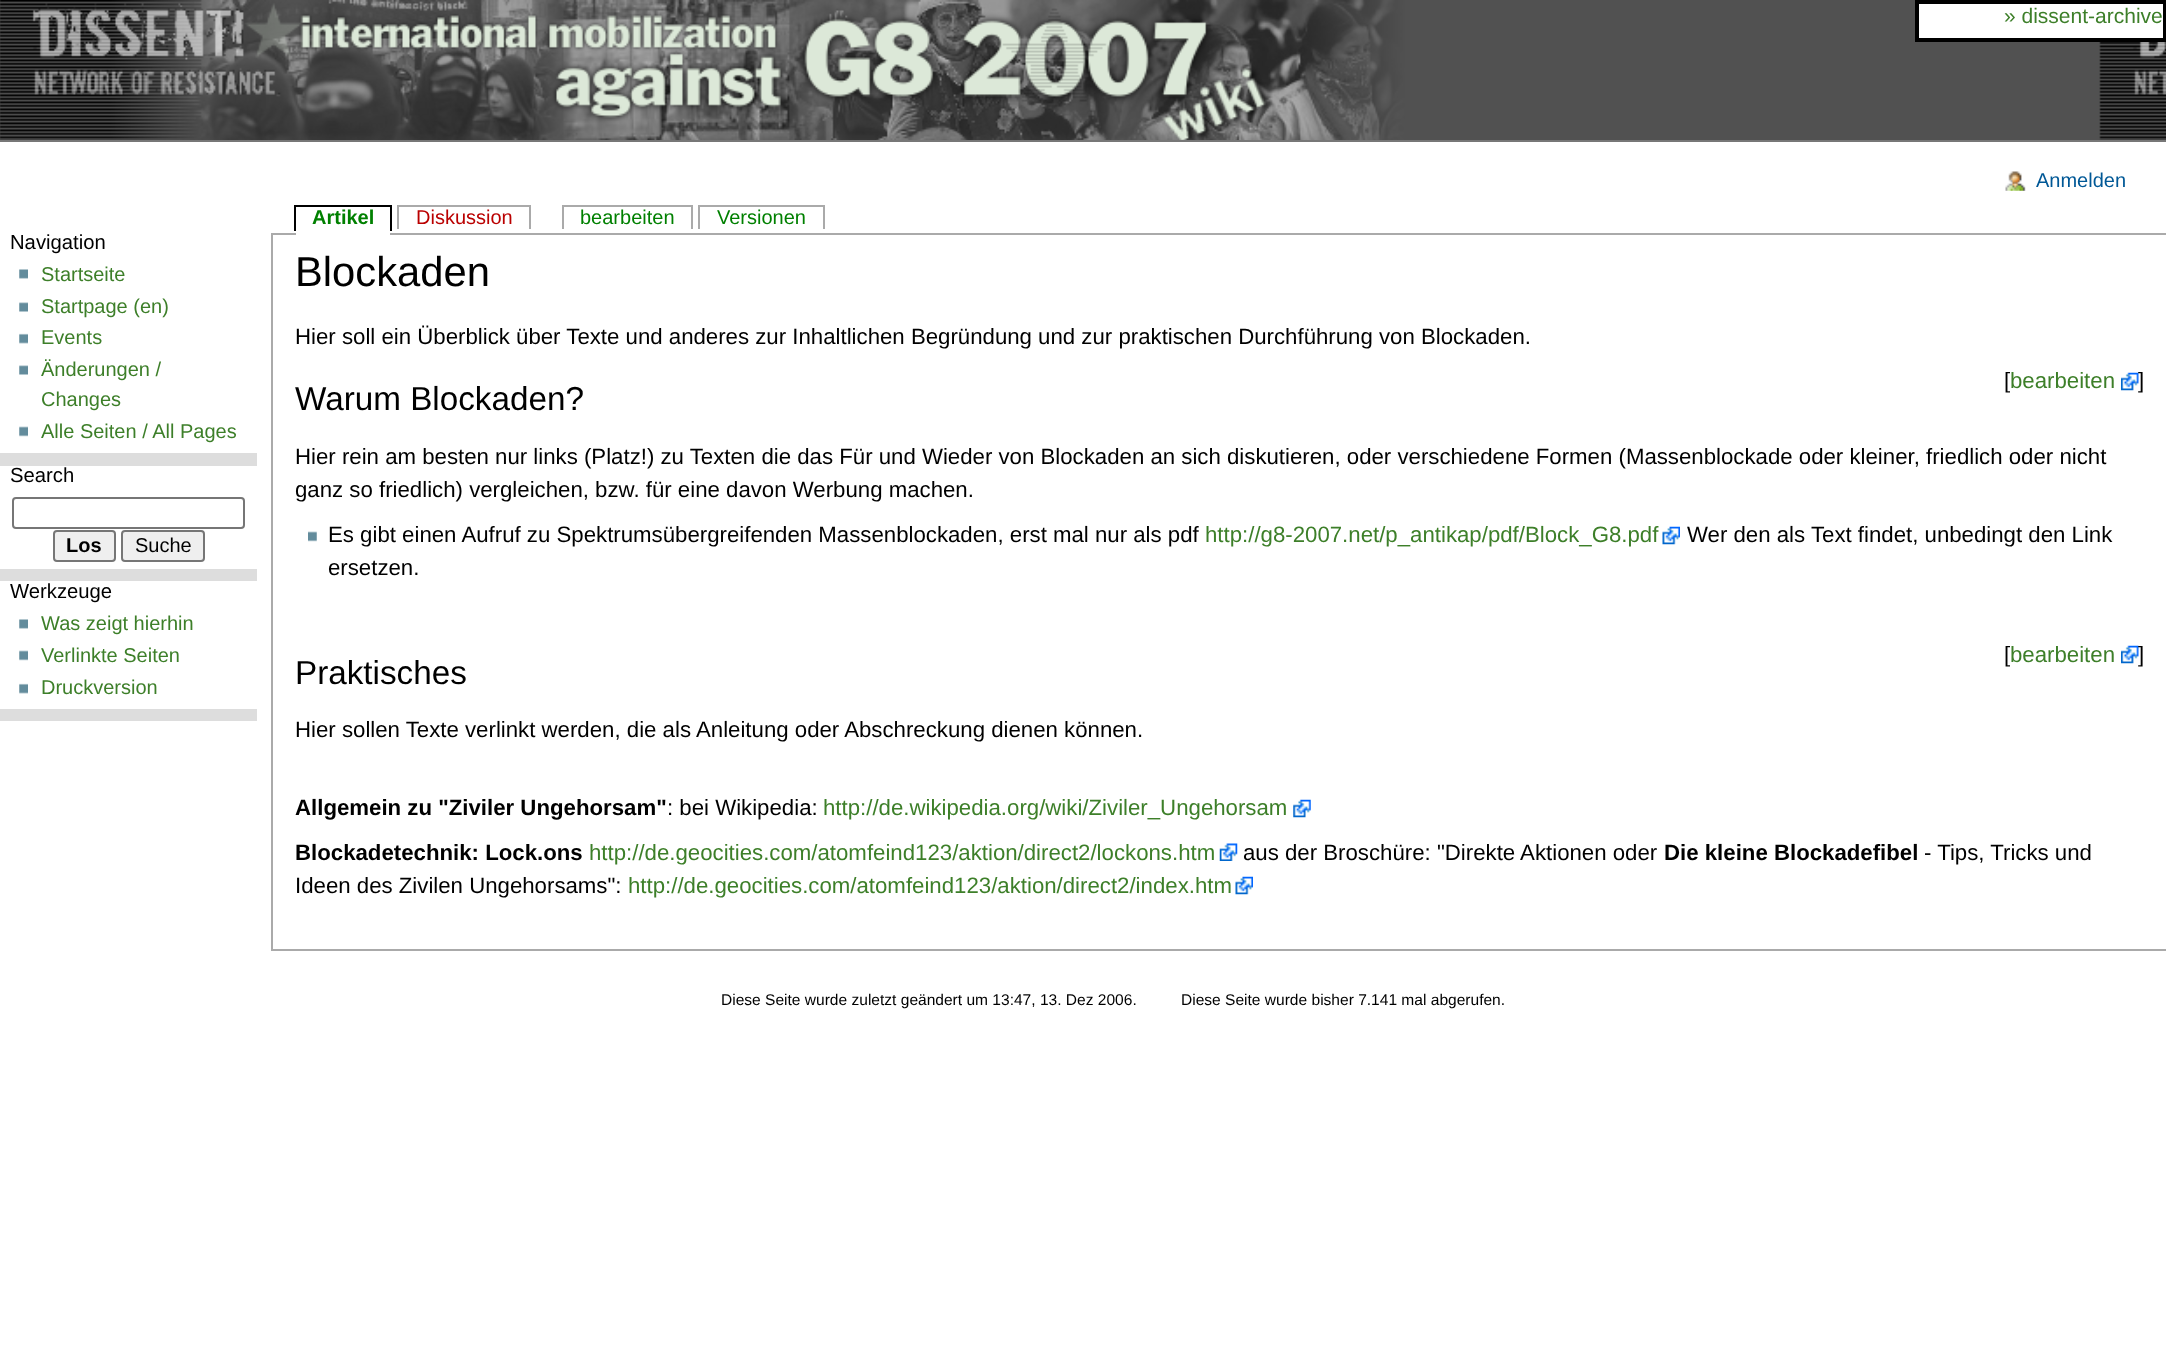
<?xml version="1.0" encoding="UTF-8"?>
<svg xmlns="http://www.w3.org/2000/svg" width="2166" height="1345">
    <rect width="100%" height="100%" fill="#FFFFFF"/>
    <image x="0" y="0" width="2166" height="140" href="img_01.png"/>
    <rect x="0" y="140" width="2166" height="2" fill="#777777"/>
    <rect x="1917" y="2" width="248" height="38" fill="#FFFFFF" stroke="#000000" stroke-width="4"/>
    <text x="2004" y="23" font-family="Liberation Sans" font-size="21" fill="#3D7F29">» dissent-archive</text>
    <image x="2005" y="171" width="21" height="20" href="img_02.png"/>
    <text x="2036" y="187" font-family="Liberation Sans" font-size="20" fill="#005896">Anmelden</text>
    <text x="312" y="224" font-family="Liberation Sans" font-size="20" font-weight="700" fill="#008000">Artikel</text>
    <rect x="294" y="205" width="98" height="2" fill="#000000"/>
    <rect x="390" y="205" width="2" height="26" fill="#000000"/>
    <rect x="294" y="205" width="2" height="26" fill="#000000"/>
    <rect x="271" y="233" width="1895" height="2" fill="#AAAAAA"/>
    <rect x="296" y="233" width="94" height="2" fill="#FFFFFF"/>
    <text x="416" y="224" font-family="Liberation Sans" font-size="20" fill="#BA0000">Diskussion</text>
    <rect x="397" y="205" width="133" height="2" fill="#AAAAAA"/>
    <rect x="529" y="205" width="2" height="24" fill="#AAAAAA"/>
    <rect x="397" y="205" width="2" height="24" fill="#AAAAAA"/>
    <text x="580" y="224" font-family="Liberation Sans" font-size="20" fill="#008000">bearbeiten</text>
    <rect x="562" y="205" width="131" height="2" fill="#AAAAAA"/>
    <rect x="691" y="205" width="2" height="24" fill="#AAAAAA"/>
    <rect x="562" y="205" width="2" height="24" fill="#AAAAAA"/>
    <text x="717" y="224" font-family="Liberation Sans" font-size="20" fill="#008000">Versionen</text>
    <rect x="698" y="205" width="126" height="2" fill="#AAAAAA"/>
    <rect x="823" y="205" width="2" height="24" fill="#AAAAAA"/>
    <rect x="698" y="205" width="2" height="24" fill="#AAAAAA"/>
    <rect x="0" y="453" width="257" height="268" fill="#DDDDDD"/>
    <text x="10" y="249" font-family="Liberation Sans" font-size="20.25" fill="#000000">Navigation</text>
    <image x="19" y="269" width="9" height="10" href="img_03.png"/>
    <text x="41" y="281" font-family="Liberation Sans" font-size="20" fill="#3D7F29">Startseite</text>
    <image x="19" y="302" width="9" height="10" href="img_04.png"/>
    <text x="41" y="313" font-family="Liberation Sans" font-size="20" fill="#3D7F29">Startpage (en)</text>
    <image x="19" y="333" width="9" height="11" href="img_05.png"/>
    <text x="41" y="344" font-family="Liberation Sans" font-size="20" fill="#3D7F29">Events</text>
    <image x="19" y="365" width="9" height="10" href="img_04.png"/>
    <text font-family="Liberation Sans" font-size="20" fill="#3D7F29">
        <tspan x="41" y="376">Änderungen /</tspan>
        <tspan x="41" y="406">Changes</tspan>
    </text>
    <image x="19" y="426" width="9" height="11" href="img_06.png"/>
    <text x="41" y="438" font-family="Liberation Sans" font-size="20" fill="#3D7F29">Alle Seiten / All Pages</text>
    <rect x="0" y="466" width="257" height="103" fill="#FFFFFF"/>
    <text x="10" y="482" font-family="Liberation Sans" font-size="20.25" fill="#000000">Search</text>
    <rect x="13" y="498" width="231" height="30" rx="3" fill="none" stroke="#767676" stroke-width="2"/>
    <rect x="54" y="531" width="61" height="30" rx="3" fill="#EFEFEF" stroke="#767676" stroke-width="2"/>
    <text x="66" y="552" font-family="Liberation Sans" font-size="20" font-weight="700" fill="#000000">Los</text>
    <rect x="122" y="531" width="82" height="30" rx="3" fill="#EFEFEF" stroke="#767676" stroke-width="2"/>
    <text x="135" y="552" font-family="Liberation Sans" font-size="20" fill="#000000">Suche</text>
    <rect x="0" y="581" width="257" height="128" fill="#FFFFFF"/>
    <text x="10" y="598" font-family="Liberation Sans" font-size="20.25" fill="#000000">Werkzeuge</text>
    <image x="19" y="619" width="9" height="10" href="img_03.png"/>
    <text x="41" y="630" font-family="Liberation Sans" font-size="20" fill="#3D7F29">Was zeigt hierhin</text>
    <image x="19" y="650" width="9" height="11" href="img_06.png"/>
    <text x="41" y="662" font-family="Liberation Sans" font-size="20" fill="#3D7F29">Verlinkte Seiten</text>
    <image x="19" y="683" width="9" height="11" href="img_05.png"/>
    <text x="41" y="694" font-family="Liberation Sans" font-size="20" fill="#3D7F29">Druckversion</text>
    <rect x="271" y="949" width="1895" height="2" fill="#AAAAAA"/>
    <rect x="271" y="233" width="2" height="717" fill="#AAAAAA"/>
    <text x="295" y="286" font-family="Liberation Sans" font-size="41.75" fill="#000000">Blockaden</text>
    <text x="295" y="344" font-family="Liberation Sans" font-size="22.22" fill="#000000">Hier soll ein Überblick über Texte und anderes zur Inhaltlichen Begründung und zur praktischen Durchführung von Blockaden.</text>
    <text x="2004" y="388" font-family="Liberation Sans" font-size="22.22" fill="#000000">[</text>
    <text x="2010" y="388" font-family="Liberation Sans" font-size="22.22" fill="#3D7F29">bearbeiten</text>
    <image x="2121" y="372" width="18" height="19" href="img_07.png"/>
    <text x="2138" y="388" font-family="Liberation Sans" font-size="22.22" fill="#000000">]</text>
    <text x="295" y="410" font-family="Liberation Sans" font-size="33.25" fill="#000000">Warum Blockaden?</text>
    <text font-family="Liberation Sans" font-size="22.22" fill="#000000">
        <tspan x="295" y="464">Hier rein am besten nur links (Platz!) zu Texten die das Für und Wieder von Blockaden an sich diskutieren, oder verschiedene Formen (Massenblockade oder kleiner, friedlich oder nicht</tspan>
        <tspan x="295" y="497">ganz so friedlich) vergleichen, bzw. für eine davon Werbung machen.</tspan>
    </text>
    <image x="308" y="531" width="9" height="11" href="img_08.png"/>
    <text x="328" y="542" font-family="Liberation Sans" font-size="22.22" fill="#000000">Es gibt einen Aufruf zu Spektrumsübergreifenden Massenblockaden, erst mal nur als pdf</text>
    <text x="1205" y="542" font-family="Liberation Sans" font-size="22.22" fill="#3D7F29">http://g8-2007.net/p_antikap/pdf/Block_G8.pdf</text>
    <image x="1662" y="526" width="18" height="19" href="img_09.png"/>
    <text x="1687" y="542" font-family="Liberation Sans" font-size="22.22" fill="#000000">Wer den als Text findet, unbedingt den Link</text>
    <text x="328" y="575" font-family="Liberation Sans" font-size="22.22" fill="#000000">ersetzen.</text>
    <text x="2004" y="662" font-family="Liberation Sans" font-size="22.22" fill="#000000">[</text>
    <text x="2010" y="662" font-family="Liberation Sans" font-size="22.22" fill="#3D7F29">bearbeiten</text>
    <image x="2121" y="645" width="18" height="19" href="img_07.png"/>
    <text x="2138" y="662" font-family="Liberation Sans" font-size="22.22" fill="#000000">]</text>
    <text x="295" y="684" font-family="Liberation Sans" font-size="33.25" fill="#000000">Praktisches</text>
    <text x="295" y="737" font-family="Liberation Sans" font-size="22.22" fill="#000000">Hier sollen Texte verlinkt werden, die als Anleitung oder Abschreckung dienen können.</text>
    <text x="295" y="815" font-family="Liberation Sans" font-size="22.22" font-weight="700" fill="#000000">Allgemein zu "Ziviler Ungehorsam"</text>
    <text x="667" y="815" font-family="Liberation Sans" font-size="22.22" fill="#000000">: bei Wikipedia:</text>
    <text x="823" y="815" font-family="Liberation Sans" font-size="22.22" fill="#3D7F29">http://de.wikipedia.org/wiki/Ziviler_Ungehorsam</text>
    <image x="1293" y="799" width="18" height="19" href="img_10.png"/>
    <text x="295" y="860" font-family="Liberation Sans" font-size="22.22" font-weight="700" fill="#000000">Blockadetechnik: Lock.ons</text>
    <text x="589" y="860" font-family="Liberation Sans" font-size="22.22" fill="#3D7F29">http://de.geocities.com/atomfeind123/aktion/direct2/lockons.htm</text>
    <image x="1219" y="843" width="19" height="18" href="img_11.png"/>
    <text x="1243" y="860" font-family="Liberation Sans" font-size="22.22" fill="#000000">aus der Broschüre: "Direkte Aktionen oder</text>
    <text x="1664" y="860" font-family="Liberation Sans" font-size="22.22" font-weight="700" fill="#000000">Die kleine Blockadefibel</text>
    <text x="1924" y="860" font-family="Liberation Sans" font-size="22.22" fill="#000000">- Tips, Tricks und</text>
    <text x="295" y="893" font-family="Liberation Sans" font-size="22.22" fill="#000000">Ideen des Zivilen Ungehorsams":</text>
    <text x="628" y="893" font-family="Liberation Sans" font-size="22.22" fill="#3D7F29">http://de.geocities.com/atomfeind123/aktion/direct2/index.htm</text>
    <image x="1235" y="876" width="18" height="19" href="img_12.png"/>
    <text x="721" y="1005" font-family="Liberation Sans" font-size="15.55" fill="#000000">Diese Seite wurde zuletzt geändert um 13:47, 13. Dez 2006.</text>
    <text x="1181" y="1005" font-family="Liberation Sans" font-size="15.55" fill="#000000">Diese Seite wurde bisher 7.141 mal abgerufen.</text>
</svg>
